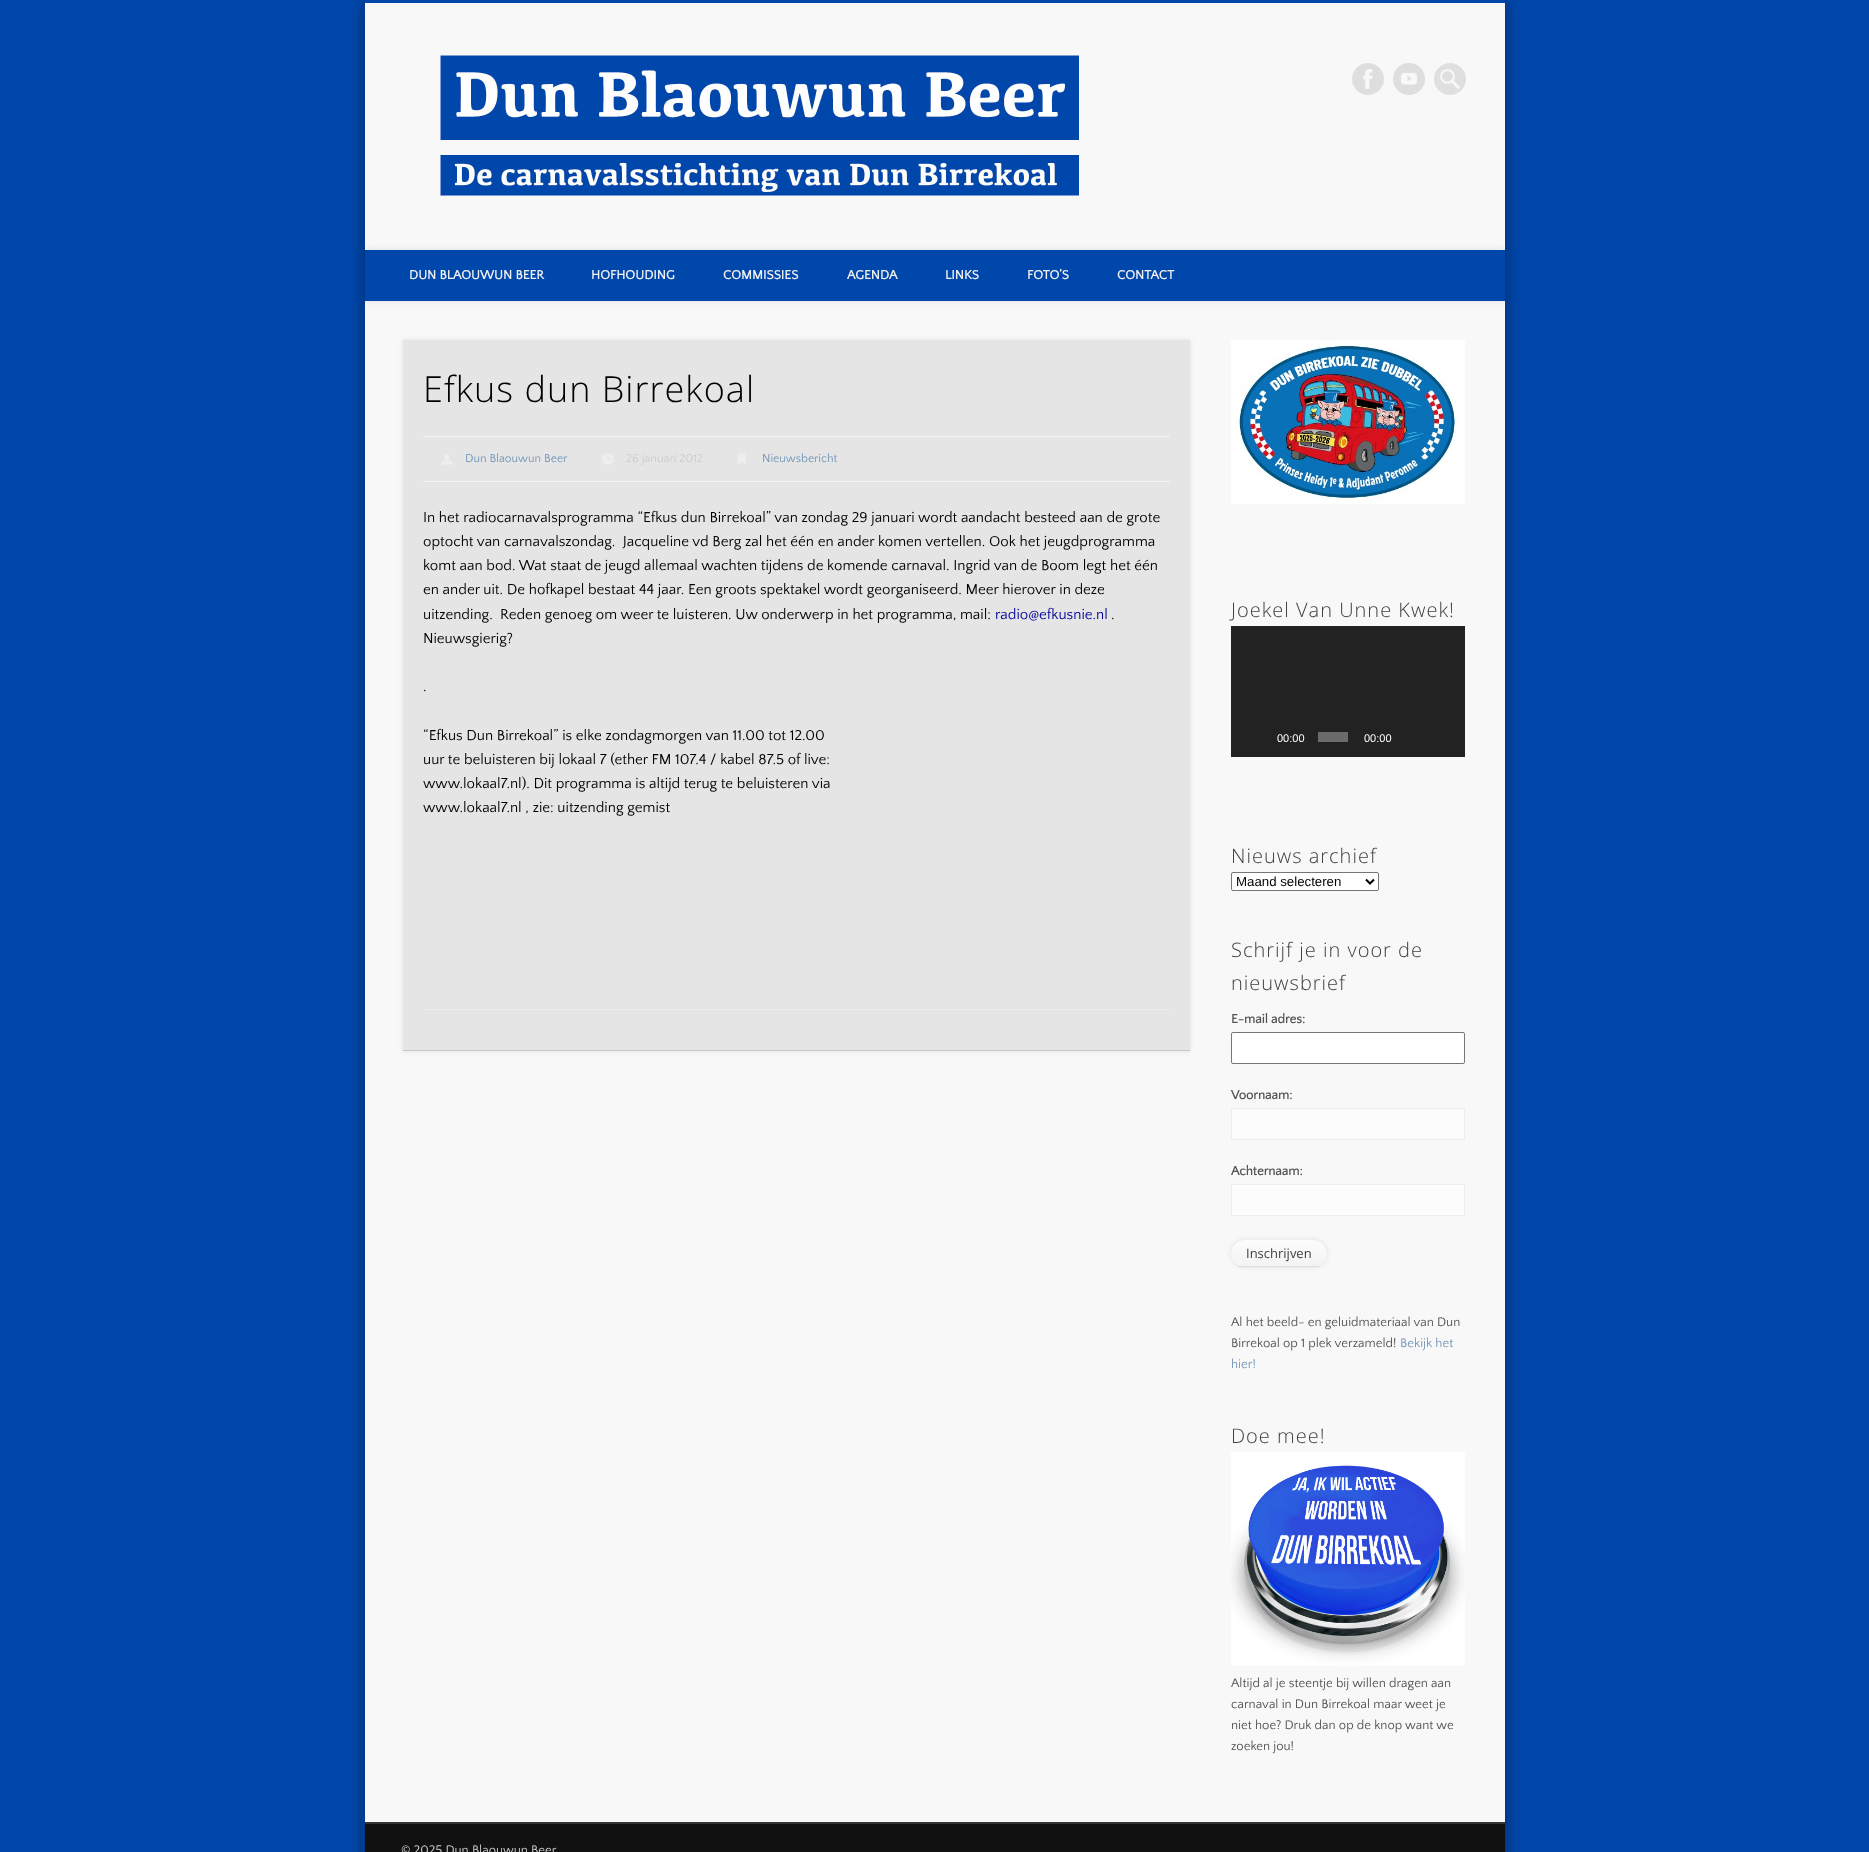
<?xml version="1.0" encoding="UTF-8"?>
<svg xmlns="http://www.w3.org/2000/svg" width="1869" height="1852">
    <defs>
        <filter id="blur1" x="-50%" y="-200%" width="200%" height="500%"><feGaussianBlur stdDeviation="9"/></filter>
        <clipPath id="clip1"><rect x="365" y="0" width="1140" height="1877"/></clipPath>
        <filter id="blur2" x="-50%" y="-200%" width="200%" height="500%"><feGaussianBlur stdDeviation="3.5"/></filter>
        <filter id="blur3" x="-50%" y="-200%" width="200%" height="500%"><feGaussianBlur stdDeviation="2.5"/></filter>
        <clipPath id="clip2"><rect x="1231" y="1240" width="96" height="27" rx="13.5"/></clipPath>
        <linearGradient id="g1" gradientUnits="userSpaceOnUse" x1="1279" y1="1240" x2="1279" y2="1266"><stop offset="0" stop-color="#FCFCFC"/><stop offset="1" stop-color="#F3F3F3"/></linearGradient>
    </defs>
    <rect width="100%" height="100%" fill="#0047AB"/>
    <rect x="365" y="0" width="1140" height="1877" fill="#000000" fill-opacity="0.4" filter="url(#blur1)"/>
    <rect x="365" y="3" width="1140" height="1819" fill="#F8F8F8"/>
    <rect x="365" y="0" width="1140" height="3" fill="#0047AB"/>
    <image x="439" y="53" width="640" height="144" href="img_01.png"/>
    <image x="1352" y="63" width="32" height="32" href="img_02.png"/>
    <image x="1393" y="63" width="32" height="32" href="img_03.png"/>
    <circle cx="1450" cy="79" r="16" fill="#DFDFDF"/>
    <image x="1440" y="69" width="20" height="20" href="img_04.png"/>
    <g clip-path="url(#clip1)">
        <rect x="365" y="250" width="1140" height="51" fill="#000000" fill-opacity="0.1" filter="url(#blur2)"/>
    </g>
    <rect x="365" y="250" width="1140" height="51" fill="#0047AB"/>
    <text x="409" y="279" font-family="Quattrocento Sans" font-size="13" font-weight="700" fill="#F0F0F0">DUN BLAOUWUN BEER</text>
    <text x="591" y="279" font-family="Quattrocento Sans" font-size="13" font-weight="700" fill="#F0F0F0">HOFHOUDING</text>
    <text x="723" y="279" font-family="Quattrocento Sans" font-size="13" font-weight="700" fill="#F0F0F0">COMMISSIES</text>
    <text x="847" y="279" font-family="Quattrocento Sans" font-size="13" font-weight="700" fill="#F0F0F0">AGENDA</text>
    <text x="945" y="279" font-family="Quattrocento Sans" font-size="13" font-weight="700" fill="#F0F0F0">LINKS</text>
    <text x="1027" y="279" font-family="Quattrocento Sans" font-size="13" font-weight="700" fill="#F0F0F0">FOTO’S</text>
    <text x="1117" y="279" font-family="Quattrocento Sans" font-size="13" font-weight="700" fill="#F0F0F0">CONTACT</text>
    <rect x="403" y="340" width="787" height="711" fill="#000000" fill-opacity="0.1" filter="url(#blur3)"/>
    <rect x="403" y="340" width="787" height="710" fill="#E5E5E5"/>
    <rect x="403" y="1050" width="787" height="1" fill="#C7C7C7"/>
    <text x="423" y="402" font-family="Open Sans" font-size="36" font-weight="300" letter-spacing="1" fill="#000000">Efkus dun Birrekoal</text>
    <rect x="423" y="436" width="747" height="1" fill="#F4F4F4"/>
    <rect x="423" y="481" width="747" height="1" fill="#F4F4F4"/>
    <image x="441" y="453" width="12" height="12" href="img_05.png"/>
    <text x="465" y="462" font-family="Quattrocento Sans" font-size="12" fill="#7597B9">Dun Blaouwun Beer</text>
    <image x="602" y="453" width="12" height="12" href="img_06.png"/>
    <text x="626" y="462" font-family="Quattrocento Sans" font-size="12" fill="#CCCCCC">26 januari 2012</text>
    <image x="738" y="453" width="8" height="12" href="img_07.png"/>
    <text x="762" y="462" font-family="Quattrocento Sans" font-size="12" fill="#7597B9">Nieuwsbericht</text>
    <text font-family="Quattrocento Sans" font-size="15" fill="#000000" xml:space="preserve"><tspan x="423" y="522">In het radiocarnavalsprogramma “Efkus dun Birrekoal” van zondag 29 januari wordt aandacht besteed aan de grote</tspan><tspan x="423" y="546">optocht van carnavalszondag.  Jacqueline vd Berg zal het één en ander komen vertellen. Ook het jeugdprogramma</tspan><tspan x="423" y="570">komt aan bod. Wat staat de jeugd allemaal wachten tijdens de komende carnaval. Ingrid van de Boom legt het één</tspan><tspan x="423" y="594">en ander uit. De hofkapel bestaat 44 jaar. Een groots spektakel wordt georganiseerd. Meer hierover in deze</tspan><tspan x="423" y="619">uitzending.  Reden genoeg om weer te luisteren. Uw onderwerp in het programma, mail:</tspan></text>
    <text x="995" y="619" font-family="Quattrocento Sans" font-size="15" fill="#000099">radio@efkusnie.nl</text>
    <text x="1111" y="619" font-family="Quattrocento Sans" font-size="15" fill="#000000">.</text>
    <text x="423" y="643" font-family="Quattrocento Sans" font-size="15" fill="#000000">Nieuwsgierig?</text>
    <text x="423" y="691" font-family="Quattrocento Sans" font-size="15" fill="#000000">.</text>
    <text font-family="Quattrocento Sans" font-size="15" fill="#000000">
        <tspan x="423" y="740">“Efkus Dun Birrekoal” is elke zondagmorgen van 11.00 tot 12.00</tspan>
        <tspan x="423" y="764">uur te beluisteren bij lokaal 7 (ether FM 107.4 / kabel 87.5 of live:</tspan>
        <tspan x="423" y="788">www.lokaal7.nl). Dit programma is altijd terug te beluisteren via</tspan>
        <tspan x="423" y="812">www.lokaal7.nl , zie: uitzending gemist</tspan>
    </text>
    <rect x="423" y="1009" width="747" height="1" fill="#EEEEEE"/>
    <image x="1231" y="340" width="234" height="164" href="img_08.png"/>
    <text x="1231" y="617" font-family="Open Sans" font-size="20" font-weight="300" letter-spacing="1" fill="#3F3F3F">Joekel Van Unne Kwek!</text>
    <rect x="1231" y="626" width="234" height="131" fill="#222222"/>
    <text x="1277" y="742" font-family="Liberation Sans" font-size="11" fill="#FFFFFF">00:00</text>
    <rect x="1318" y="732" width="30" height="10" fill="#6B6B6B"/>
    <text x="1364" y="742" font-family="Liberation Sans" font-size="11" fill="#FFFFFF">00:00</text>
    <text x="1231" y="863" font-family="Open Sans" font-size="20" font-weight="300" letter-spacing="1" fill="#3F3F3F">Nieuws archief</text>
    <rect x="1231.5" y="872.5" width="147" height="18" rx="1.5" fill="#FFFFFF" stroke="#767676"/>
    <path d="M 1366 879.5 L 1370 883.5 L 1374 879.5" fill="none" stroke="#000000" stroke-width="2"/>
    <text x="1236" y="886" font-family="Liberation Sans" font-size="13.25" fill="#000000">Maand selecteren</text>
    <text font-family="Open Sans" font-size="20" font-weight="300" letter-spacing="1" fill="#3F3F3F">
        <tspan x="1231" y="957">Schrijf je in voor de</tspan>
        <tspan x="1231" y="990">nieuwsbrief</tspan>
    </text>
    <text x="1231" y="1023" font-family="Quattrocento Sans" font-size="13" font-weight="700" fill="#545454">E-mail adres:</text>
    <rect x="1231.5" y="1032.5" width="233" height="31" rx="1.5" fill="#FFFFFF" stroke="#767676"/>
    <text x="1231" y="1099" font-family="Quattrocento Sans" font-size="13" font-weight="700" fill="#545454">Voornaam:</text>
    <rect x="1231.5" y="1108.5" width="233" height="31" fill="#FCFCFC" stroke="#EEEEEE"/>
    <text x="1231" y="1175" font-family="Quattrocento Sans" font-size="13" font-weight="700" fill="#545454">Achternaam:</text>
    <rect x="1231.5" y="1184.5" width="233" height="31" fill="#FCFCFC" stroke="#EEEEEE"/>
    <rect x="1231" y="1240" width="96" height="27" rx="13.5" fill="#000000" fill-opacity="0.1" filter="url(#blur3)"/>
    <g clip-path="url(#clip2)">
        <path d="M 1244.5 1240 H 1313.5 C 1321 1240 1327 1246 1327 1253.5 V 1266 H 1231 V 1253.5 C 1231 1246 1237 1240 1244.5 1240 Z" fill="url(#g1)"/>
    </g>
    <rect x="1238" y="1266" width="82" height="1" fill="#DDDDDD"/>
    <text x="1246" y="1258" font-family="Open Sans" font-size="13" fill="#3F3F3F">Inschrijven</text>
    <text font-family="Quattrocento Sans" font-size="13" fill="#545454">
        <tspan x="1231" y="1326">Al het beeld- en geluidmateriaal van Dun</tspan>
        <tspan x="1231" y="1347">Birrekoal op 1 plek verzameld!</tspan>
    </text>
    <text x="1400" y="1347" font-family="Quattrocento Sans" font-size="13" fill="#7597B9">Bekijk het</text>
    <text x="1231" y="1368" font-family="Quattrocento Sans" font-size="13" fill="#7597B9">hier!</text>
    <text x="1231" y="1443" font-family="Open Sans" font-size="20" font-weight="300" letter-spacing="1" fill="#3F3F3F">Doe mee!</text>
    <image x="1231" y="1452" width="234" height="214" href="img_09.png"/>
    <text font-family="Quattrocento Sans" font-size="13" fill="#545454">
        <tspan x="1231" y="1687">Altijd al je steentje bij willen dragen aan</tspan>
        <tspan x="1231" y="1708">carnaval in Dun Birrekoal maar weet je</tspan>
        <tspan x="1231" y="1729">niet hoe? Druk dan op de knop want we</tspan>
        <tspan x="1231" y="1750">zoeken jou!</tspan>
    </text>
    <rect x="365" y="1822" width="1140" height="2" fill="#343434"/>
    <rect x="365" y="1824" width="1140" height="28" fill="#111111"/>
    <text x="401" y="1854" font-family="Quattrocento Sans" font-size="13" fill="#CCCCCC">© 2025 Dun Blaouwun Beer</text>
</svg>
